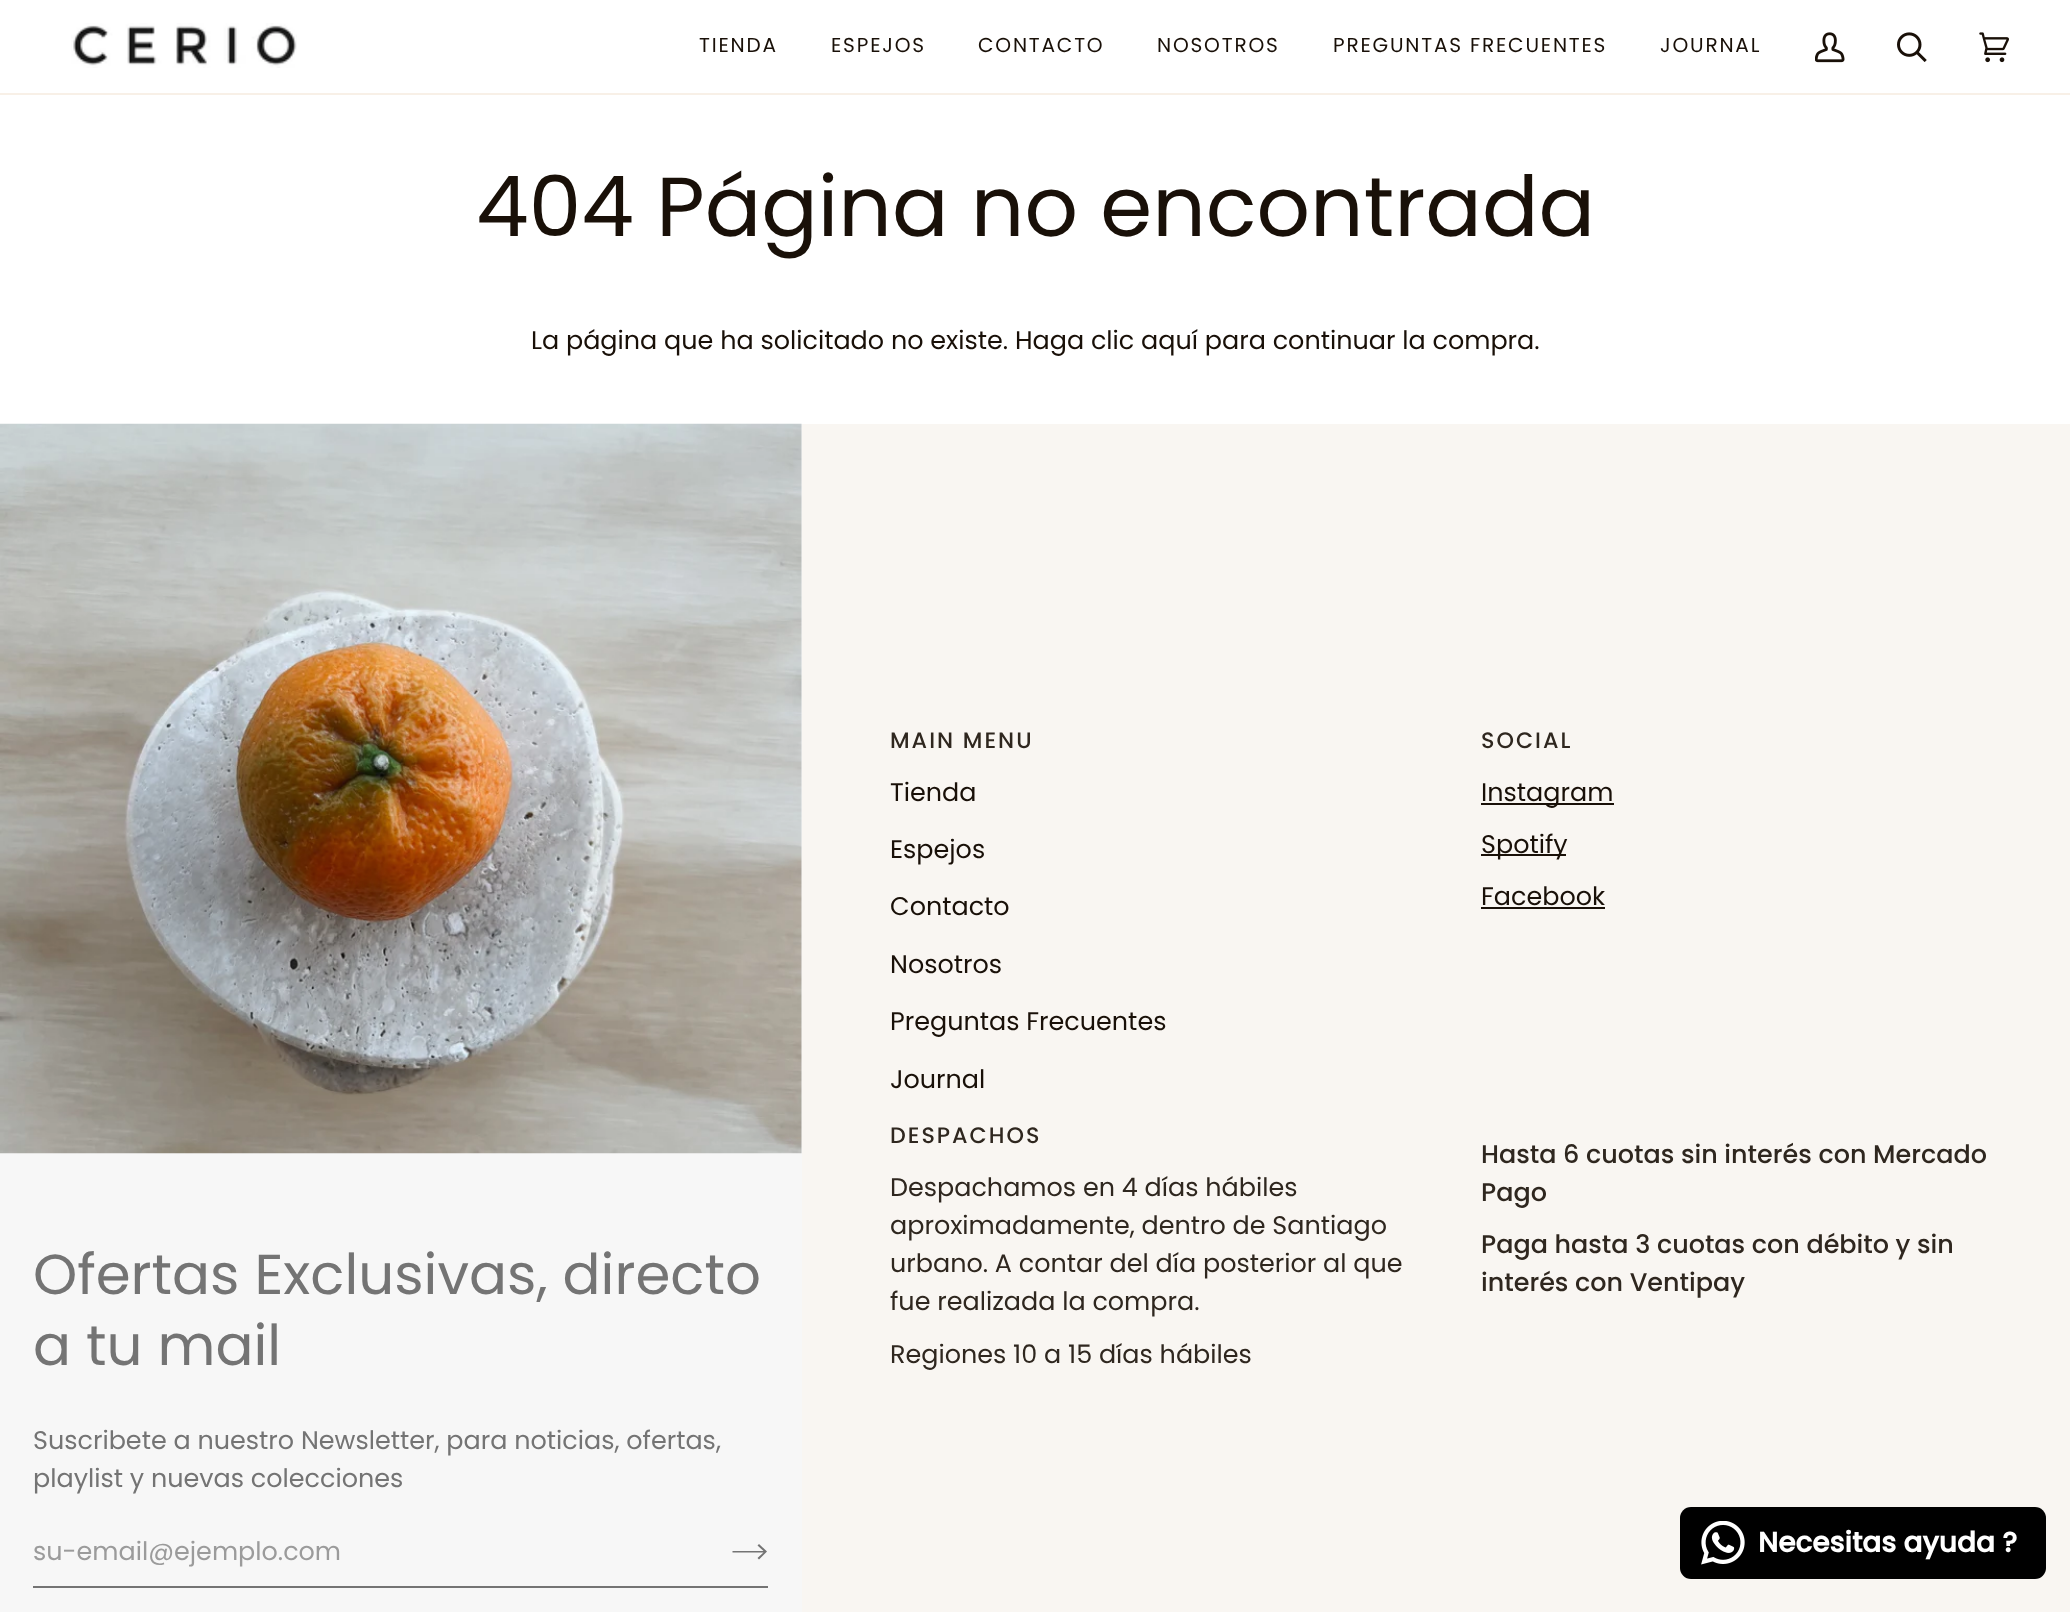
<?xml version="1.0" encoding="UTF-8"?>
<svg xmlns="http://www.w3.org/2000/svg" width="2070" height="1612">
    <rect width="100%" height="100%" fill="#FFFFFF"/>
    <rect x="0" y="93" width="2070" height="2" fill="#F8F0E7"/>
    <image x="71" y="23" width="226" height="45" href="img_01.png"/>
    <text x="699" y="52" font-family="Poppins" font-size="20.1" letter-spacing="1.8" fill="#191008">TIENDA</text>
    <text x="831" y="52" font-family="Poppins" font-size="20.1" letter-spacing="1.8" fill="#191008">ESPEJOS</text>
    <text x="978" y="52" font-family="Poppins" font-size="20.1" letter-spacing="1.8" fill="#191008">CONTACTO</text>
    <text x="1157" y="52" font-family="Poppins" font-size="20.1" letter-spacing="1.8" fill="#191008">NOSOTROS</text>
    <text x="1333" y="52" font-family="Poppins" font-size="20.1" letter-spacing="1.8" fill="#191008">PREGUNTAS FRECUENTES</text>
    <text x="1660" y="52" font-family="Poppins" font-size="20.1" letter-spacing="1.8" fill="#191008">JOURNAL</text>
    <image x="1815" y="32" width="30" height="31" href="img_02.png"/>
    <image x="1897" y="32" width="30" height="30" href="img_03.png"/>
    <image x="1979" y="32" width="30" height="31" href="img_04.png"/>
    <text x="476" y="236" font-family="Poppins" font-size="83.7" fill="#191008">404 Página no encontrada</text>
    <text x="531" y="349" font-family="Poppins" font-size="25.45" fill="#191008">La página que ha solicitado no existe. Haga clic aquí para continuar la compra.</text>
    <rect x="802" y="424" width="1268" height="1188" fill="#F9F6F2"/>
    <text x="890" y="748" font-family="Poppins" font-size="22.25" font-weight="500" letter-spacing="2" fill="#2F271F">MAIN MENU</text>
    <text x="890" y="801" font-family="Poppins" font-size="25.45" fill="#191008">Tienda</text>
    <text x="890" y="858" font-family="Poppins" font-size="25.45" fill="#191008">Espejos</text>
    <text x="890" y="915" font-family="Poppins" font-size="25.45" fill="#191008">Contacto</text>
    <text x="890" y="973" font-family="Poppins" font-size="25.45" fill="#191008">Nosotros</text>
    <text x="890" y="1030" font-family="Poppins" font-size="25.45" fill="#191008">Preguntas Frecuentes</text>
    <text x="890" y="1088" font-family="Poppins" font-size="25.45" fill="#191008">Journal</text>
    <text x="1481" y="748" font-family="Poppins" font-size="22.25" font-weight="500" letter-spacing="2" fill="#2F271F">SOCIAL</text>
    <rect x="1481" y="803" width="133" height="2" fill="#191008"/>
    <text x="1481" y="801" font-family="Poppins" font-size="25.45" fill="#191008">Instagram</text>
    <rect x="1481" y="854" width="85" height="2" fill="#191008"/>
    <text x="1481" y="853" font-family="Poppins" font-size="25.45" fill="#191008">Spotify</text>
    <text x="1481" y="905" font-family="Poppins" font-size="25.45" fill="#191008">Facebook</text>
    <rect x="1481" y="907" width="124" height="2" fill="#191008"/>
    <text x="890" y="1143" font-family="Poppins" font-size="22.25" font-weight="500" letter-spacing="2" fill="#2F271F">DESPACHOS</text>
    <text font-family="Poppins" font-size="25.45" fill="#2F271F">
        <tspan x="890" y="1196">Despachamos en 4 días hábiles</tspan>
        <tspan x="890" y="1234">aproximadamente, dentro de Santiago</tspan>
        <tspan x="890" y="1272">urbano. A contar del día posterior al que</tspan>
        <tspan x="890" y="1310">fue realizada la compra.</tspan>
    </text>
    <text x="890" y="1363" font-family="Poppins" font-size="25.45" fill="#2F271F">Regiones 10 a 15 días hábiles</text>
    <text font-family="Poppins" font-size="25.45" font-weight="500" fill="#2F271F">
        <tspan x="1481" y="1163">Hasta 6 cuotas sin interés con Mercado</tspan>
        <tspan x="1481" y="1201">Pago</tspan>
    </text>
    <text font-family="Poppins" font-size="25.45" font-weight="500" fill="#2F271F">
        <tspan x="1481" y="1253">Paga hasta 3 cuotas con débito y sin</tspan>
        <tspan x="1481" y="1291">interés con Ventipay</tspan>
    </text>
    <rect x="0" y="424" width="802" height="1188" fill="#F7F7F7"/>
    <image x="0" y="423" width="802" height="731" href="img_05.png"/>
    <text font-family="Poppins" font-size="56.25" fill="#747474">
        <tspan x="33" y="1294">Ofertas Exclusivas, directo</tspan>
        <tspan x="33" y="1365">a tu mail</tspan>
    </text>
    <text font-family="Poppins" font-size="25.45" fill="#747474">
        <tspan x="33" y="1449">Suscribete a nuestro Newsletter, para noticias, ofertas,</tspan>
        <tspan x="33" y="1487">playlist y nuevas colecciones</tspan>
    </text>
    <rect x="33" y="1586" width="735" height="2" fill="#747474"/>
    <text x="33" y="1560" font-family="Poppins" font-size="25.45" fill="#9B9B9B">su-email@ejemplo.com</text>
    <path d="M 757.5 1545.5 L 759 1544 L 767 1551.5 L 759 1559.5 L 757.5 1558 L 763.5 1552.5 H 732.5 V 1551 H 763.5 Z" fill="#747474"/>
    <rect x="1680" y="1507" width="366" height="72" rx="11" fill="#000000"/>
    <image x="1701" y="1521" width="44" height="44" href="img_06.png"/>
    <text x="1758" y="1552" font-family="Poppins" font-size="28" font-weight="700" fill="#FFFFFF">Necesitas ayuda ?</text>
</svg>
